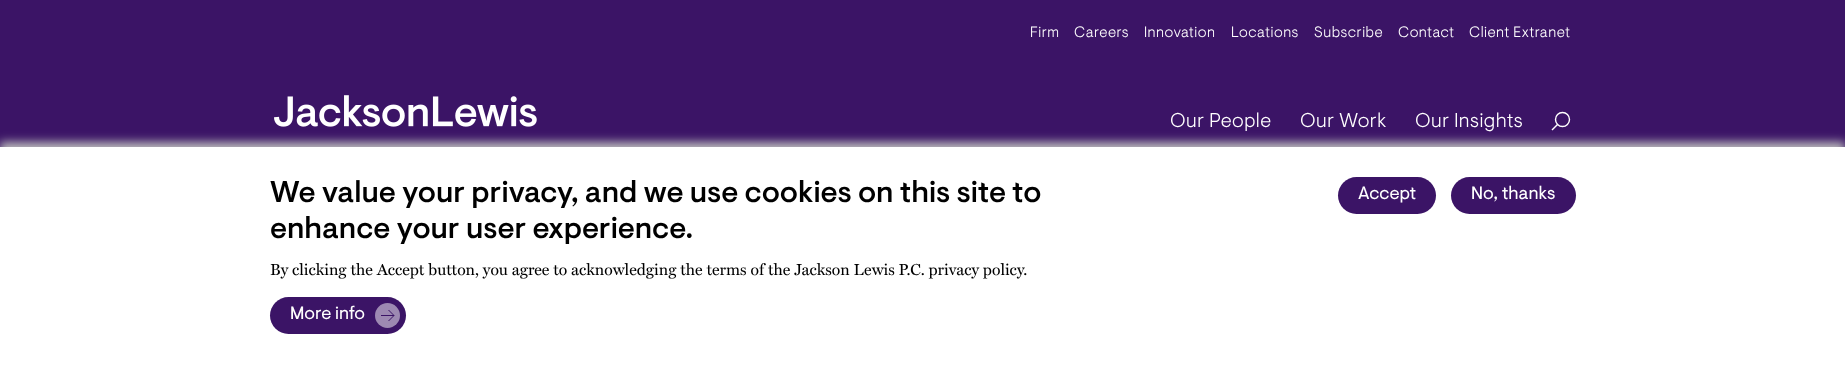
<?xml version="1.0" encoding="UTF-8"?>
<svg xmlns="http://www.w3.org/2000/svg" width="1845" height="370">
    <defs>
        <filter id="blur1" x="-50%" y="-200%" width="200%" height="500%"><feGaussianBlur stdDeviation="5"/></filter>
    </defs>
    <rect width="100%" height="100%" fill="#3B1466"/>
    <image x="274" y="95" width="263" height="32" href="img_01.png"/>
    <text x="1030" y="37" font-family="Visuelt" font-size="15" font-weight="300" letter-spacing="0.5" fill="#FFFFFF">Firm</text>
    <text x="1074" y="37" font-family="Visuelt" font-size="15" font-weight="300" letter-spacing="0.5" fill="#FFFFFF">Careers</text>
    <text x="1144" y="37" font-family="Visuelt" font-size="15" font-weight="300" letter-spacing="0.5" fill="#FFFFFF">Innovation</text>
    <text x="1231" y="37" font-family="Visuelt" font-size="15" font-weight="300" letter-spacing="0.5" fill="#FFFFFF">Locations</text>
    <text x="1314" y="37" font-family="Visuelt" font-size="15" font-weight="300" letter-spacing="0.5" fill="#FFFFFF">Subscribe</text>
    <text x="1398" y="37" font-family="Visuelt" font-size="15" font-weight="300" letter-spacing="0.5" fill="#FFFFFF">Contact</text>
    <text x="1469" y="37" font-family="Visuelt" font-size="15" font-weight="300" letter-spacing="0.5" fill="#FFFFFF">Client Extranet</text>
    <text x="1170" y="127" font-family="Visuelt" font-size="20" font-weight="300" letter-spacing="0.5" fill="#FFFFFF">Our People</text>
    <text x="1300" y="127" font-family="Visuelt" font-size="20" font-weight="300" letter-spacing="0.5" fill="#FFFFFF">Our Work</text>
    <text x="1415" y="127" font-family="Visuelt" font-size="20" font-weight="300" letter-spacing="0.5" fill="#FFFFFF">Our Insights</text>
    <circle cx="1562.5" cy="119.5" r="7" fill="none" stroke="#FFFFFF" stroke-width="1.4"/>
    <path d="M 1557.5 124.5 L 1552 130" fill="none" stroke="#FFFFFF" stroke-width="1.4"/>
    <rect x="0" y="142" width="1845" height="223" fill="#BCBCBC" filter="url(#blur1)"/>
    <rect x="0" y="147" width="1845" height="223" fill="#FFFFFF"/>
    <text font-family="Visuelt" font-size="30" font-weight="500" fill="#000000">
        <tspan x="270" y="202">We value your privacy, and we use cookies on this site to</tspan>
        <tspan x="270" y="238">enhance your user experience.</tspan>
    </text>
    <text x="270" y="275" font-family="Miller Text" font-size="16" fill="#000000">By clicking the Accept button, you agree to acknowledging the terms of the Jackson Lewis P.C. privacy policy.</text>
    <rect x="270" y="297" width="136" height="37" rx="18.5" fill="#3B1466"/>
    <text x="290" y="319" font-family="Visuelt" font-size="18" fill="#FFFFFF">More info</text>
    <circle cx="387.5" cy="315.5" r="12.5" fill="#9D89B2"/>
    <path d="M 388.5 310 L 394 315.5 L 388.5 321" fill="none" stroke="#3B1466"/>
    <rect x="381" y="315" width="13" height="1" fill="#3B1466"/>
    <rect x="1338" y="177" width="98" height="37" rx="18.5" fill="#3B1466"/>
    <text x="1358" y="199" font-family="Visuelt" font-size="18" fill="#FFFFFF">Accept</text>
    <rect x="1451" y="177" width="125" height="37" rx="18.5" fill="#3B1466"/>
    <text x="1471" y="199" font-family="Visuelt" font-size="18" fill="#FFFFFF">No, thanks</text>
</svg>
